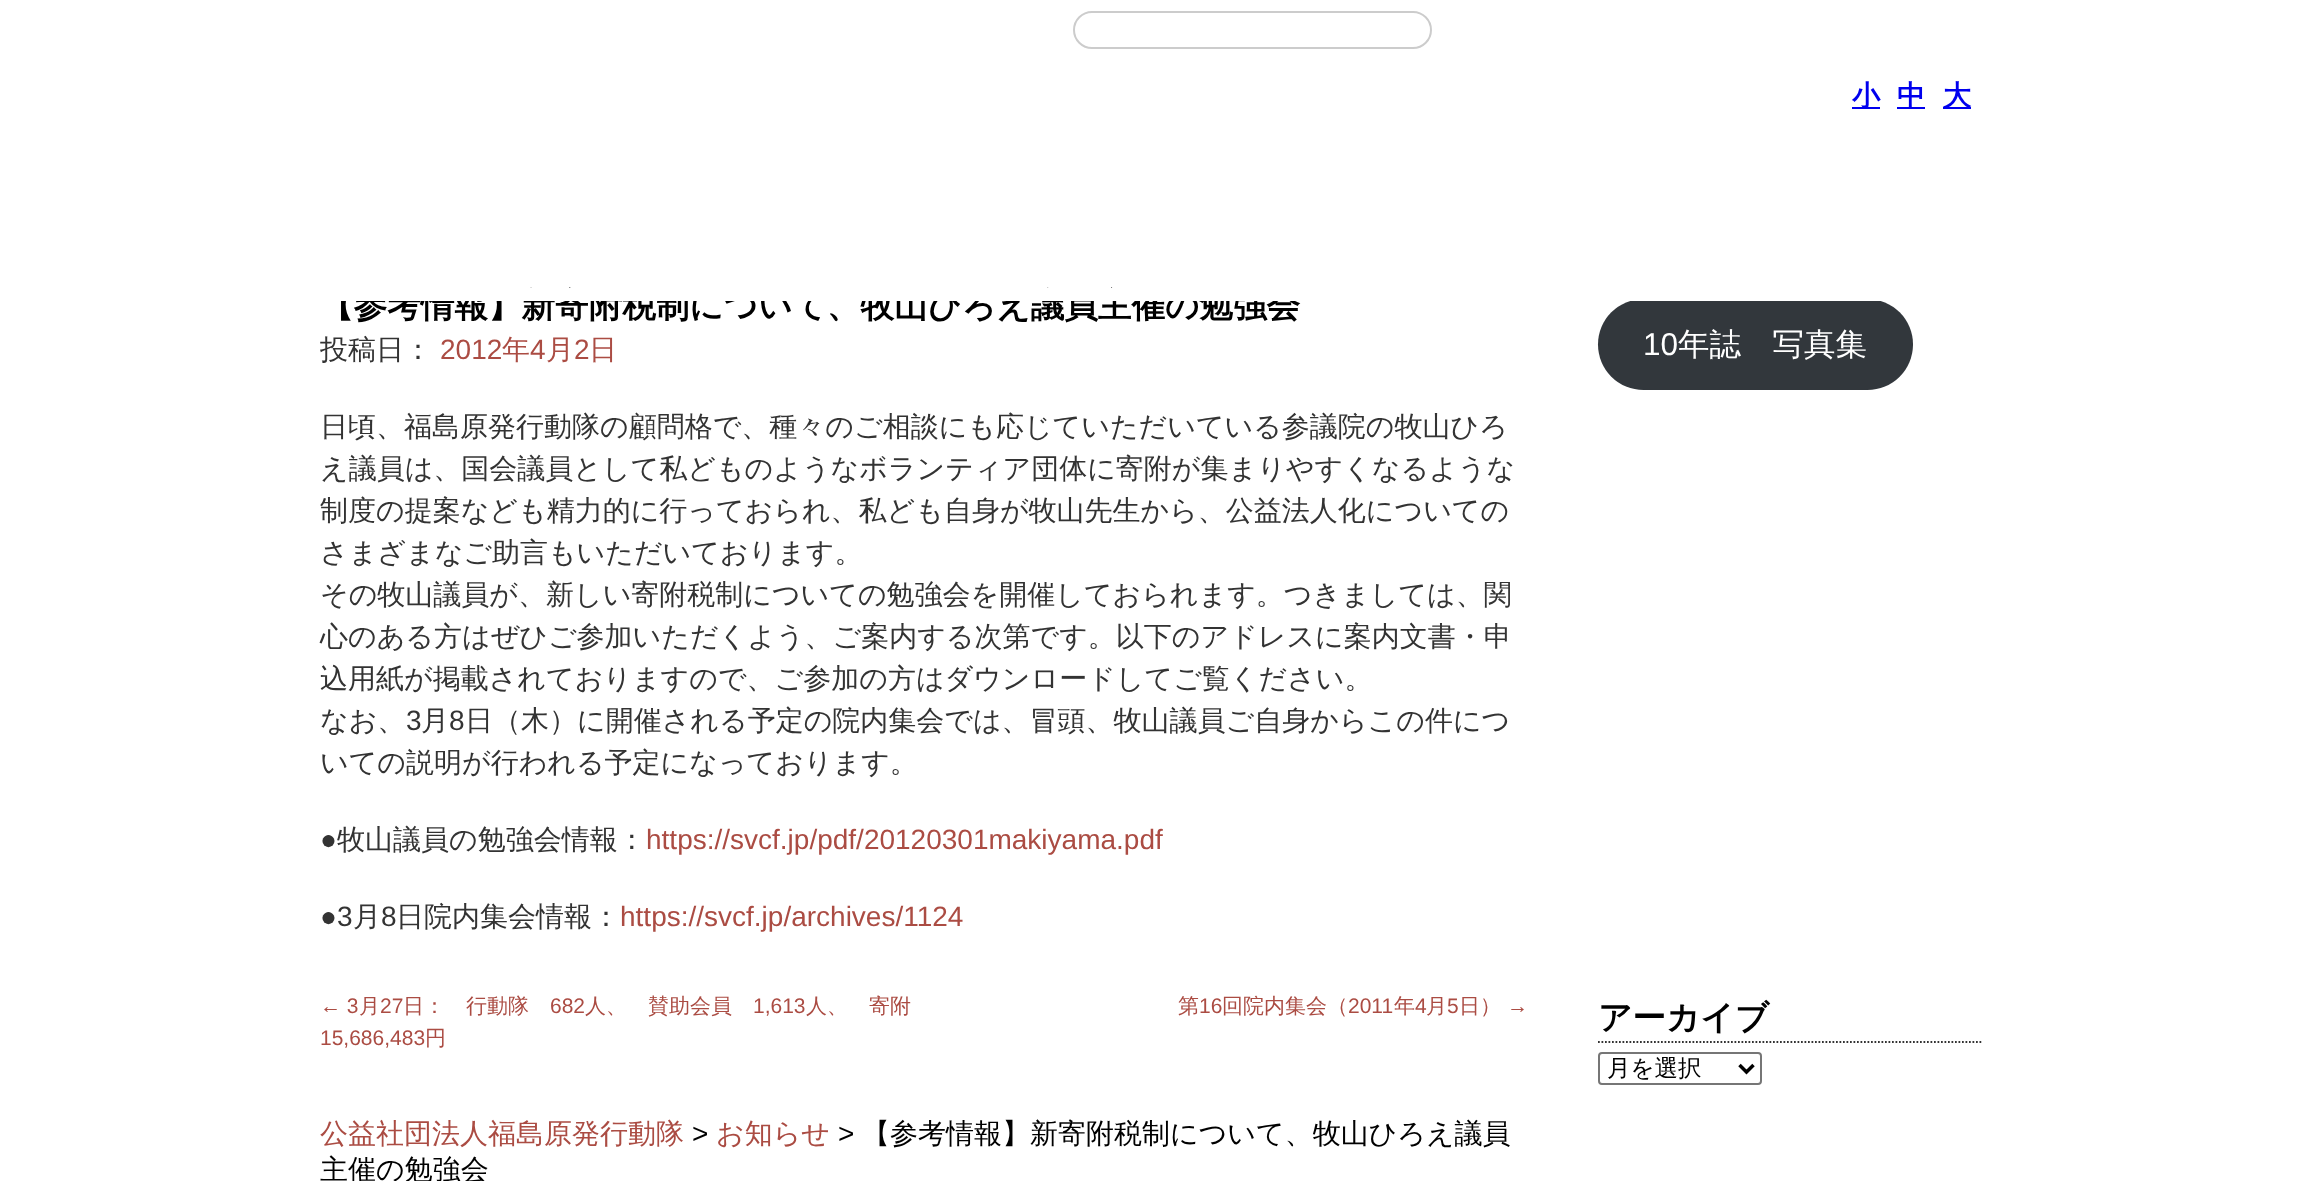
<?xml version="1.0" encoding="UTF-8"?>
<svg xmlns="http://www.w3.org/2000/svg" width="2303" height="1181">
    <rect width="100%" height="100%" fill="#FFFFFF"/>
    <text x="320" y="317" font-family="WenQuanYi Zen Hei" font-size="33.6" font-weight="700" fill="#000000">【参考情報】新寄附税制について、牧山ひろえ議員主催の勉強会</text>
    <rect x="1598" y="299" width="315" height="91" rx="45.5" fill="#32373C"/>
    <rect x="341" y="288" width="1540" height="13" fill="#FFFFFF"/>
    <rect x="1074" y="12" width="357" height="36" rx="18" fill="none" stroke="#CCCCCC" stroke-width="2"/>
    <rect x="1852" y="107" width="28" height="2" fill="#0000EE"/>
    <text x="1852" y="105" font-family="WenQuanYi Zen Hei" font-size="28" font-weight="700" fill="#0000EE">小</text>
    <rect x="1897" y="107" width="28" height="2" fill="#0000EE"/>
    <text x="1897" y="105" font-family="WenQuanYi Zen Hei" font-size="28" font-weight="700" fill="#0000EE">中</text>
    <rect x="1943" y="107" width="28" height="2" fill="#0000EE"/>
    <text x="1943" y="105" font-family="WenQuanYi Zen Hei" font-size="28" font-weight="700" fill="#0000EE">大</text>
    <text x="320" y="359" font-family="WenQuanYi Zen Hei" font-size="28" font-weight="500" fill="#333333">投稿日：</text>
    <text x="440" y="359" font-family="Liberation Sans" font-size="28" fill="#AB4C43">2012</text>
    <text x="502" y="359" font-family="WenQuanYi Zen Hei" font-size="28" font-weight="500" fill="#AB4C43">年</text>
    <text x="530" y="359" font-family="Liberation Sans" font-size="28" fill="#AB4C43">4</text>
    <text x="546" y="359" font-family="WenQuanYi Zen Hei" font-size="28" font-weight="500" fill="#AB4C43">月</text>
    <text x="574" y="359" font-family="Liberation Sans" font-size="28" fill="#AB4C43">2</text>
    <text x="589" y="359" font-family="WenQuanYi Zen Hei" font-size="28" font-weight="500" fill="#AB4C43">日</text>
    <text font-family="WenQuanYi Zen Hei" font-size="28" font-weight="500" fill="#333333">
        <tspan x="320" y="436">日頃、福島原発行動隊の顧問格で、種々のご相談にも応じていただいている参議院の牧山ひろ</tspan>
        <tspan x="320" y="478">え議員は、国会議員として私どものようなボランティア団体に寄附が集まりやすくなるような</tspan>
        <tspan x="320" y="520">制度の提案なども精力的に行っておられ、私ども自身が牧山先生から、公益法人化についての</tspan>
        <tspan x="320" y="562">さまざまなご助言もいただいております。</tspan>
        <tspan x="320" y="604">その牧山議員が、新しい寄附税制についての勉強会を開催しておられます。つきましては、関</tspan>
        <tspan x="320" y="646">心のある方はぜひご参加いただくよう、ご案内する次第です。以下のアドレスに案内文書・申</tspan>
        <tspan x="320" y="688">込用紙が掲載されておりますので、ご参加の方はダウンロードしてご覧ください。</tspan>
        <tspan x="320" y="730">なお、</tspan>
    </text>
    <text x="406" y="730" font-family="Liberation Sans" font-size="28" fill="#333333">3</text>
    <text x="421" y="730" font-family="WenQuanYi Zen Hei" font-size="28" font-weight="500" fill="#333333">月</text>
    <text x="449" y="730" font-family="Liberation Sans" font-size="28" fill="#333333">8</text>
    <text x="465" y="730" font-family="WenQuanYi Zen Hei" font-size="28" font-weight="500" fill="#333333">日（木）に開催される予定の院内集会では、冒頭、牧山議員ご自身からこの件につ</text>
    <text x="320" y="772" font-family="WenQuanYi Zen Hei" font-size="28" font-weight="500" fill="#333333">いての説明が行われる予定になっております。</text>
    <text x="320" y="849" font-family="Liberation Sans" font-size="28" fill="#333333">●</text>
    <text x="337" y="849" font-family="WenQuanYi Zen Hei" font-size="28" font-weight="500" fill="#333333">牧山議員の勉強会情報：</text>
    <text x="646" y="849" font-family="Liberation Sans" font-size="28" fill="#AB4C43">https://svcf.jp/pdf/20120301makiyama.pdf</text>
    <text x="320" y="926" font-family="Liberation Sans" font-size="28" fill="#333333">●3</text>
    <text x="353" y="926" font-family="WenQuanYi Zen Hei" font-size="28" font-weight="500" fill="#333333">月</text>
    <text x="381" y="926" font-family="Liberation Sans" font-size="28" fill="#333333">8</text>
    <text x="396" y="926" font-family="WenQuanYi Zen Hei" font-size="28" font-weight="500" fill="#333333">日院内集会情報：</text>
    <text x="620" y="926" font-family="Liberation Sans" font-size="28" fill="#AB4C43">https://svcf.jp/archives/1124</text>
    <text x="320" y="1013" font-family="Liberation Sans" font-size="21" fill="#AB4C43">← 3</text>
    <text x="359" y="1013" font-family="WenQuanYi Zen Hei" font-size="21" font-weight="500" fill="#AB4C43">月</text>
    <text x="380" y="1013" font-family="Liberation Sans" font-size="21" fill="#AB4C43">27</text>
    <text x="403" y="1013" font-family="WenQuanYi Zen Hei" font-size="21" font-weight="500" fill="#AB4C43">日：　行動隊</text>
    <text x="550" y="1013" font-family="Liberation Sans" font-size="21" fill="#AB4C43">682</text>
    <text x="585" y="1013" font-family="WenQuanYi Zen Hei" font-size="21" font-weight="500" fill="#AB4C43">人、　賛助会員</text>
    <text x="753" y="1013" font-family="Liberation Sans" font-size="21" fill="#AB4C43">1,613</text>
    <text x="806" y="1013" font-family="WenQuanYi Zen Hei" font-size="21" font-weight="500" fill="#AB4C43">人、　寄附</text>
    <text x="320" y="1045" font-family="Liberation Sans" font-size="21" fill="#AB4C43">15,686,483</text>
    <text x="425" y="1045" font-family="WenQuanYi Zen Hei" font-size="21" font-weight="500" fill="#AB4C43">円</text>
    <text x="1178" y="1013" font-family="WenQuanYi Zen Hei" font-size="21" font-weight="500" fill="#AB4C43">第</text>
    <text x="1199" y="1013" font-family="Liberation Sans" font-size="21" fill="#AB4C43">16</text>
    <text x="1222" y="1013" font-family="WenQuanYi Zen Hei" font-size="21" font-weight="500" fill="#AB4C43">回院内集会（</text>
    <text x="1348" y="1013" font-family="Liberation Sans" font-size="21" fill="#AB4C43">2011</text>
    <text x="1394" y="1013" font-family="WenQuanYi Zen Hei" font-size="21" font-weight="500" fill="#AB4C43">年</text>
    <text x="1415" y="1013" font-family="Liberation Sans" font-size="21" fill="#AB4C43">4</text>
    <text x="1426" y="1013" font-family="WenQuanYi Zen Hei" font-size="21" font-weight="500" fill="#AB4C43">月</text>
    <text x="1447" y="1013" font-family="Liberation Sans" font-size="21" fill="#AB4C43">5</text>
    <text x="1459" y="1013" font-family="WenQuanYi Zen Hei" font-size="21" font-weight="500" fill="#AB4C43">日）</text>
    <text x="1507" y="1013" font-family="Liberation Sans" font-size="21" fill="#AB4C43">→</text>
    <text x="320" y="1143" font-family="WenQuanYi Zen Hei" font-size="28" font-weight="500" fill="#AB4C43">公益社団法人福島原発行動隊</text>
    <text x="692" y="1143" font-family="Liberation Sans" font-size="28" fill="#000000">&gt;</text>
    <text x="716" y="1143" font-family="WenQuanYi Zen Hei" font-size="28" font-weight="500" fill="#AB4C43">お知らせ</text>
    <text x="838" y="1143" font-family="Liberation Sans" font-size="28" fill="#000000">&gt;</text>
    <text x="862" y="1143" font-family="WenQuanYi Zen Hei" font-size="28" font-weight="500" fill="#000000">【参考情報】新寄附税制について、牧山ひろえ議員</text>
    <text x="320" y="1179" font-family="WenQuanYi Zen Hei" font-size="28" font-weight="500" fill="#000000">主催の勉強会</text>
    <text x="1643" y="355" font-family="Liberation Sans" font-size="31.5" fill="#FFFFFF">10</text>
    <text x="1678" y="355" font-family="WenQuanYi Zen Hei" font-size="31.5" font-weight="500" fill="#FFFFFF">年誌　写真集</text>
    <path d="M 1598 1042 H 1983" fill="none" stroke="#333333" stroke-width="1.8" stroke-dasharray="1.75 1.75"/>
    <text x="1598" y="1029" font-family="WenQuanYi Zen Hei" font-size="33.6" font-weight="700" fill="#000000">アーカイブ</text>
    <rect x="1599" y="1053" width="162" height="31" rx="3" fill="none" stroke="#767676" stroke-width="2"/>
    <path d="M 1739.5 1065 L 1746.5 1072 L 1753.5 1065" fill="none" stroke="#000000" stroke-width="3.5"/>
    <text x="1607" y="1076" font-family="WenQuanYi Zen Hei" font-size="23.5" font-weight="500" fill="#000000">月を選択</text>
</svg>
